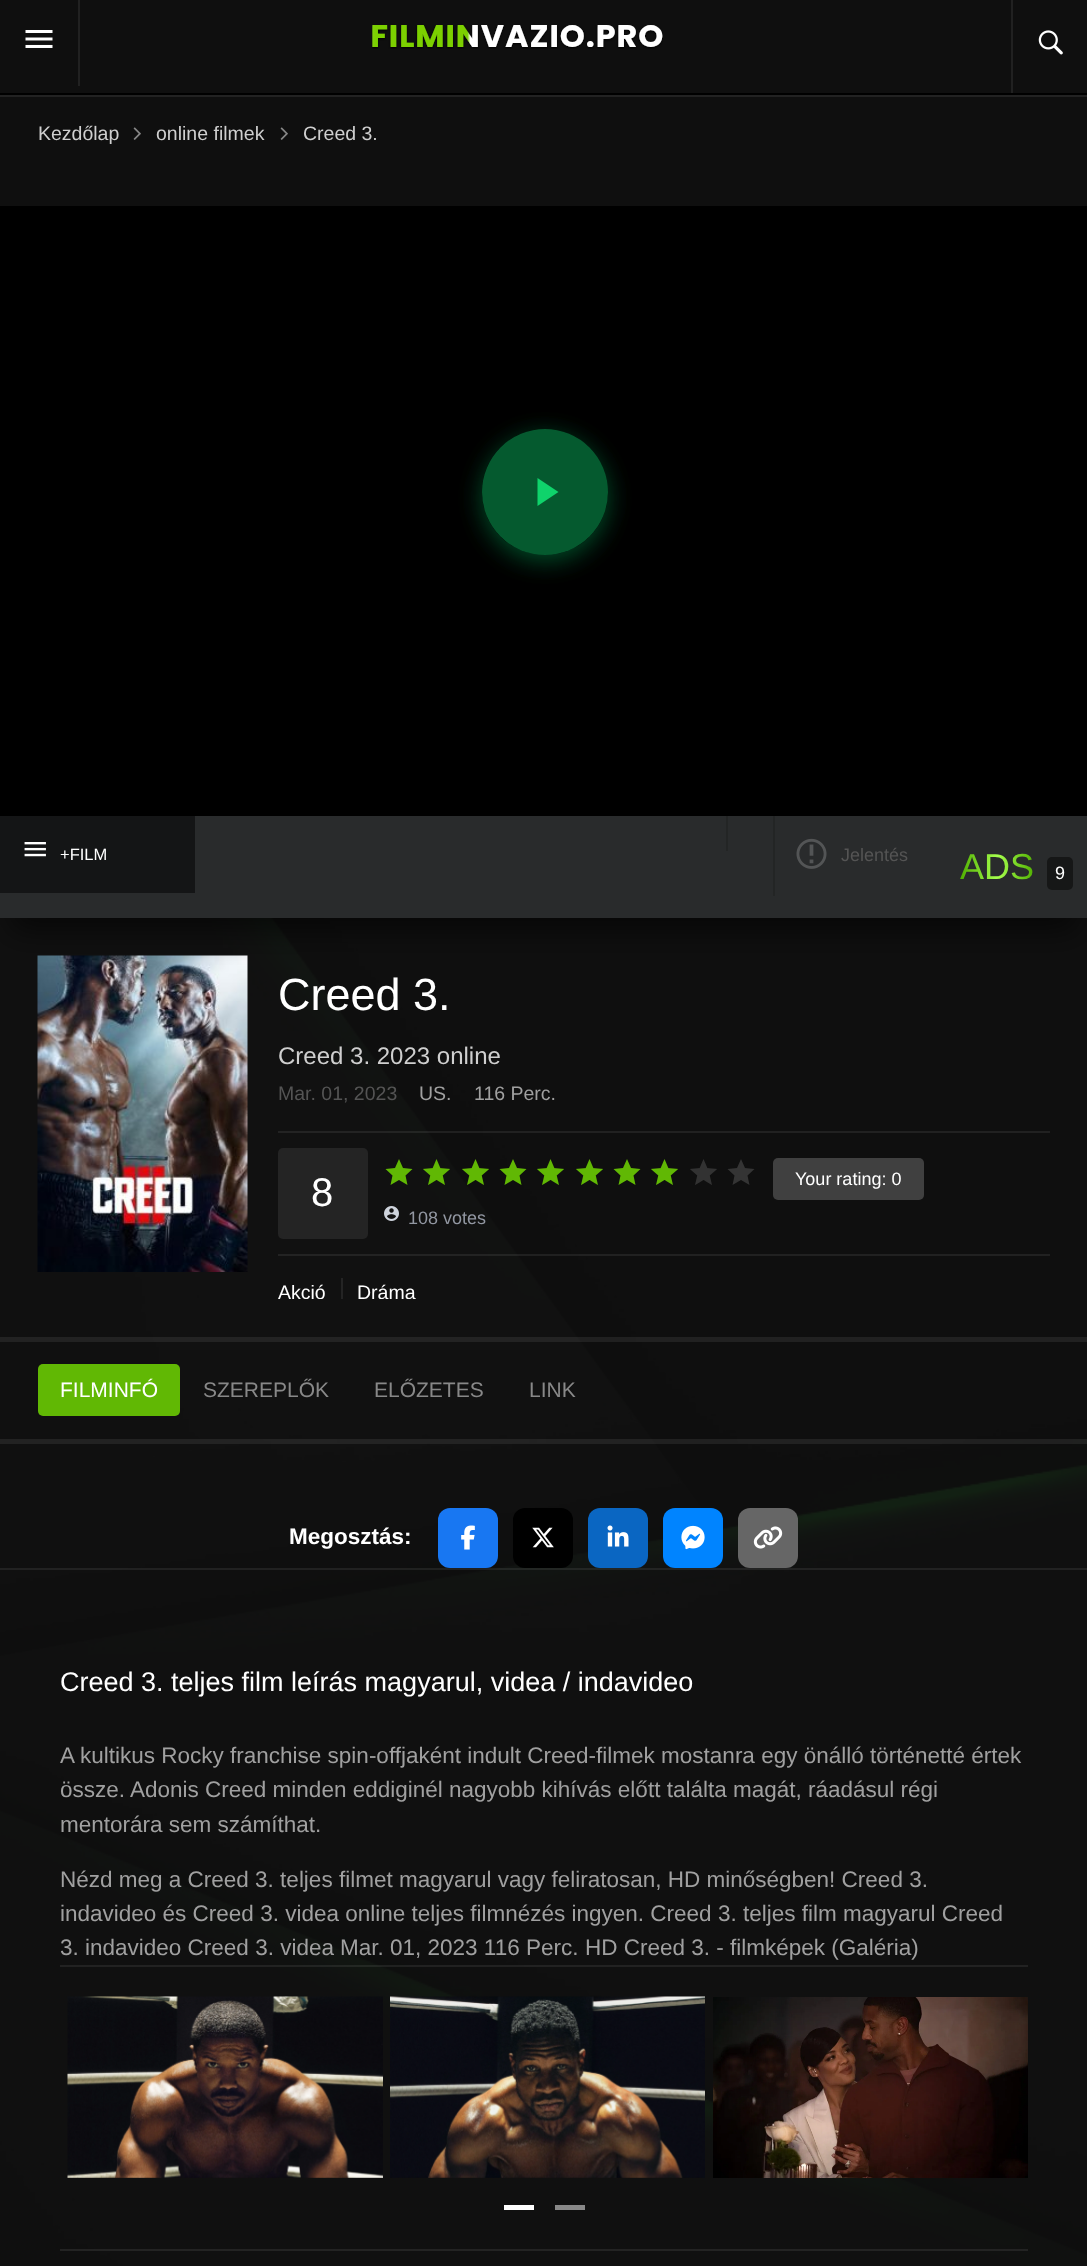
<?xml version="1.0" encoding="UTF-8"?>
<svg xmlns="http://www.w3.org/2000/svg" width="1087" height="2266">
    <defs>
        <filter id="blur1" x="-50%" y="-200%" width="200%" height="500%"><feGaussianBlur stdDeviation="15"/></filter>
        <clipPath id="clip1"><path d="M 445 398 H 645 V 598 H 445 Z M 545 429 C 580 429 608 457 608 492 C 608 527 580 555 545 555 C 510 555 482 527 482 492 C 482 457 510 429 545 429 Z" clip-rule="evenodd"/></clipPath>
        <filter id="blur2" x="-50%" y="-200%" width="200%" height="500%"><feGaussianBlur stdDeviation="12"/></filter>
        <linearGradient id="g1" gradientUnits="userSpaceOnUse" x1="960" y1="867" x2="1035" y2="867"><stop offset="0" stop-color="#4FAE00"/><stop offset="0.5" stop-color="#A6FF4D"/><stop offset="1" stop-color="#4FAE00"/></linearGradient>
        <clipPath id="clip2"><rect x="278" y="1271" width="772" height="28"/></clipPath>
    </defs>
    <rect width="100%" height="100%" fill="#FFFFFF"/>
    <image x="0" y="0" width="1087" height="2266" href="img_01.png"/>
    <rect x="0" y="0" width="1087" height="93" fill="#0F0F0F" fill-opacity="0.99"/>
    <rect x="0" y="93" width="1087" height="2" fill="#000000"/>
    <rect x="78" y="0" width="2" height="86" fill="#212121"/>
    <image x="25" y="30" width="28" height="18" href="img_02.png"/>
    <image x="372" y="25" width="291" height="24" href="img_03.png"/>
    <rect x="1011" y="0" width="2" height="93" fill="#212121"/>
    <image x="1038" y="30" width="25" height="25" href="img_04.png"/>
    <rect x="0" y="97" width="1087" height="2169" fill="#0F0F0F" fill-opacity="0.93"/>
    <rect x="0" y="95" width="1087" height="2" fill="#222222"/>
    <text x="38" y="140" font-family="Liberation Sans" font-size="19.5" fill="#CFCFCF">Kezdőlap</text>
    <image x="133" y="127" width="8" height="13" href="img_05.png"/>
    <text x="156" y="140" font-family="Liberation Sans" font-size="19.5" fill="#CFCFCF">online filmek</text>
    <image x="280" y="127" width="8" height="13" href="img_05.png"/>
    <text x="303" y="140" font-family="Liberation Sans" font-size="19.5" fill="#CFCFCF">Creed 3.</text>
    <image x="37" y="955" width="211" height="317" href="img_08.png"/>
    <rect x="11" y="849" width="1066" height="81" fill="#000000" fill-opacity="0.6" filter="url(#blur1)"/>
    <rect x="0" y="206" width="1087" height="610" fill="#000000"/>
    <g clip-path="url(#clip1)">
        <rect x="482" y="435" width="126" height="126" rx="63" fill="#088A48" fill-opacity="0.55" filter="url(#blur2)"/>
    </g>
    <circle cx="545" cy="492" r="63" fill="#088A48" fill-opacity="0.65"/>
    <path d="M 537.5 478 L 558.5 492 L 537.5 506 Z" fill="#0FD36B"/>
    <rect x="0" y="816" width="1087" height="102" fill="#292B2C"/>
    <rect x="0" y="816" width="195" height="77" fill="#141516"/>
    <image x="24" y="842" width="22" height="15" href="img_06.png"/>
    <text x="60" y="860" font-family="Liberation Sans" font-size="16.5" fill="#FFFFFF">+FILM</text>
    <rect x="726" y="816" width="2" height="35" fill="#232525"/>
    <rect x="773" y="816" width="2" height="80" fill="#232525"/>
    <image x="796" y="838" width="31" height="31" href="img_07.png"/>
    <text x="841" y="861" font-family="Liberation Sans" font-size="18" fill="#545454">Jelentés</text>
    <text x="960" y="879" font-family="Liberation Sans" font-size="36" fill="url(#g1)">ADS</text>
    <rect x="1047" y="857" width="26" height="33" rx="5" fill="#161717"/>
    <text x="1055" y="879" font-family="Liberation Sans" font-size="18" fill="#FFFFFF">9</text>
    <rect x="0" y="1337" width="1087" height="5" fill="#FFFFFF" fill-opacity="0.08"/>
    <text x="278" y="1010" font-family="Liberation Sans" font-size="45" fill="#FFFFFF">Creed 3.</text>
    <text x="278" y="1064" font-family="Liberation Sans" font-size="24" fill="#CFCFCF">Creed 3. 2023 online</text>
    <text x="278" y="1100" font-family="Liberation Sans" font-size="19.5" fill="#545454">Mar. 01, 2023</text>
    <text x="419" y="1100" font-family="Liberation Sans" font-size="19.5" fill="#A0A0A0">US.</text>
    <text x="474" y="1100" font-family="Liberation Sans" font-size="19.5" fill="#A0A0A0">116 Perc.</text>
    <rect x="278" y="1131" width="772" height="2" fill="#FFFFFF" fill-opacity="0.08"/>
    <rect x="278" y="1254" width="772" height="2" fill="#FFFFFF" fill-opacity="0.08"/>
    <path d="M 399 1180 L 390.5 1185 L 392.5 1175.5 L 385.5 1169 L 395 1168 L 399 1159 L 403 1168 L 412.5 1169 L 405.5 1175.5 L 407.5 1185 Z" fill="#61B804"/>
    <image x="423" y="1159" width="27" height="26" href="img_09.png"/>
    <image x="462" y="1159" width="27" height="26" href="img_10.png"/>
    <path d="M 513 1180 L 504.5 1185 L 506.5 1175.5 L 499.5 1169 L 509 1168 L 513 1159 L 517 1168 L 526.5 1169 L 519.5 1175.5 L 521.5 1185 Z" fill="#61B804"/>
    <image x="537" y="1159" width="27" height="26" href="img_11.png"/>
    <image x="576" y="1159" width="27" height="26" href="img_12.png"/>
    <path d="M 627 1180 L 618.5 1185 L 620.5 1175.5 L 613.5 1169 L 623 1168 L 627 1159 L 631 1168 L 640.5 1169 L 633.5 1175.5 L 635.5 1185 Z" fill="#61B804"/>
    <image x="651" y="1159" width="27" height="26" href="img_13.png"/>
    <image x="690" y="1159" width="27" height="26" href="img_14.png"/>
    <path d="M 741 1180 L 732.5 1185 L 734.5 1175.5 L 727.5 1169 L 737 1168 L 741 1159 L 745 1168 L 754.5 1169 L 747.5 1175.5 L 749.5 1185 Z" fill="#343434"/>
    <rect x="773" y="1158" width="151" height="42" rx="5" fill="#404040"/>
    <text x="795" y="1185" font-family="Liberation Sans" font-size="18" fill="#FFFFFF">Your rating: 0</text>
    <rect x="278" y="1148" width="90" height="91" rx="5" fill="#242424"/>
    <text x="311" y="1206" font-family="Liberation Sans" font-size="40" fill="#FFFFFF">8</text>
    <image x="384" y="1206" width="15" height="15" href="img_15.png"/>
    <text x="408" y="1224" font-family="Liberation Sans" font-size="18" fill="#9297A2">108 votes</text>
    <g clip-path="url(#clip2)">
        <text x="278" y="1299" font-family="Liberation Sans" font-size="19.5" fill="#FFFFFF">Akció</text>
    </g>
    <rect x="341" y="1278" width="2" height="21" fill="#242424"/>
    <g clip-path="url(#clip2)">
        <text x="357" y="1299" font-family="Liberation Sans" font-size="19.5" fill="#FFFFFF">Dráma</text>
    </g>
    <rect x="0" y="1439" width="1087" height="5" fill="#FFFFFF" fill-opacity="0.08"/>
    <rect x="38" y="1364" width="142" height="52" rx="5" fill="#61B804"/>
    <text x="60" y="1397" font-family="Liberation Sans" font-size="21" fill="#FFFFFF">FILMINFÓ</text>
    <text x="203" y="1397" font-family="Liberation Sans" font-size="21" fill="#888888">SZEREPLŐK</text>
    <text x="374" y="1397" font-family="Liberation Sans" font-size="21" fill="#888888">ELŐZETES</text>
    <text x="529" y="1397" font-family="Liberation Sans" font-size="21" fill="#888888">LINK</text>
    <rect x="0" y="1568" width="1087" height="2" fill="#FFFFFF" fill-opacity="0.08"/>
    <text x="289" y="1544" font-family="Liberation Sans" font-size="22.5" font-weight="700" fill="#FFFFFF">Megosztás:</text>
    <rect x="438" y="1508" width="60" height="60" rx="12" fill="#1877F2"/>
    <image x="461" y="1525" width="14" height="25" href="img_16.png"/>
    <rect x="513" y="1508" width="60" height="60" rx="12" fill="#000000"/>
    <image x="532" y="1527" width="22" height="21" href="img_17.png"/>
    <rect x="588" y="1508" width="60" height="60" rx="12" fill="#0A66C2"/>
    <image x="607" y="1525" width="22" height="22" href="img_18.png"/>
    <rect x="663" y="1508" width="60" height="60" rx="12" fill="#0084FF"/>
    <image x="681" y="1525" width="24" height="25" href="img_19.png"/>
    <rect x="738" y="1508" width="60" height="60" rx="12" fill="#666666"/>
    <image x="753" y="1526" width="30" height="23" href="img_20.png"/>
    <text x="60" y="1691" font-family="Liberation Sans" font-size="27" fill="#FFFFFF">Creed 3. teljes film leírás magyarul, videa / indavideo</text>
    <rect x="60" y="2249" width="968" height="2" fill="#232323"/>
    <text font-family="Liberation Sans" font-size="22.5" fill="#A0A0A0">
        <tspan x="60" y="1763">A kultikus Rocky franchise spin-offjaként indult Creed-filmek mostanra egy önálló történetté értek</tspan>
        <tspan x="60" y="1797">össze. Adonis Creed minden eddiginél nagyobb kihívás előtt találta magát, ráadásul régi</tspan>
        <tspan x="60" y="1832">mentorára sem számíthat.</tspan>
    </text>
    <text font-family="Liberation Sans" font-size="22.5" fill="#A0A0A0">
        <tspan x="60" y="1887">Nézd meg a Creed 3. teljes filmet magyarul vagy feliratosan, HD minőségben! Creed 3.</tspan>
        <tspan x="60" y="1921">indavideo és Creed 3. videa online teljes filmnézés ingyen. Creed 3. teljes film magyarul Creed</tspan>
        <tspan x="60" y="1955">3. indavideo Creed 3. videa</tspan>
    </text>
    <text x="340" y="1955" font-family="Liberation Sans" font-size="22.5" fill="#A0A0A0">Mar. 01, 2023 116 Perc.</text>
    <text x="585" y="1955" font-family="Liberation Sans" font-size="22.5" fill="#A0A0A0">HD Creed 3. - filmképek (Galéria)</text>
    <rect x="60" y="1965" width="968" height="2" fill="#FFFFFF" fill-opacity="0.08"/>
    <image x="67" y="1996" width="316" height="182" href="img_21.png"/>
    <image x="390" y="1996" width="315" height="182" href="img_22.png"/>
    <image x="713" y="1997" width="315" height="181" href="img_23.png"/>
    <rect x="504" y="2205" width="30" height="5" fill="#FFFFFF"/>
    <rect x="555" y="2205" width="30" height="5" fill="#888888"/>
</svg>
